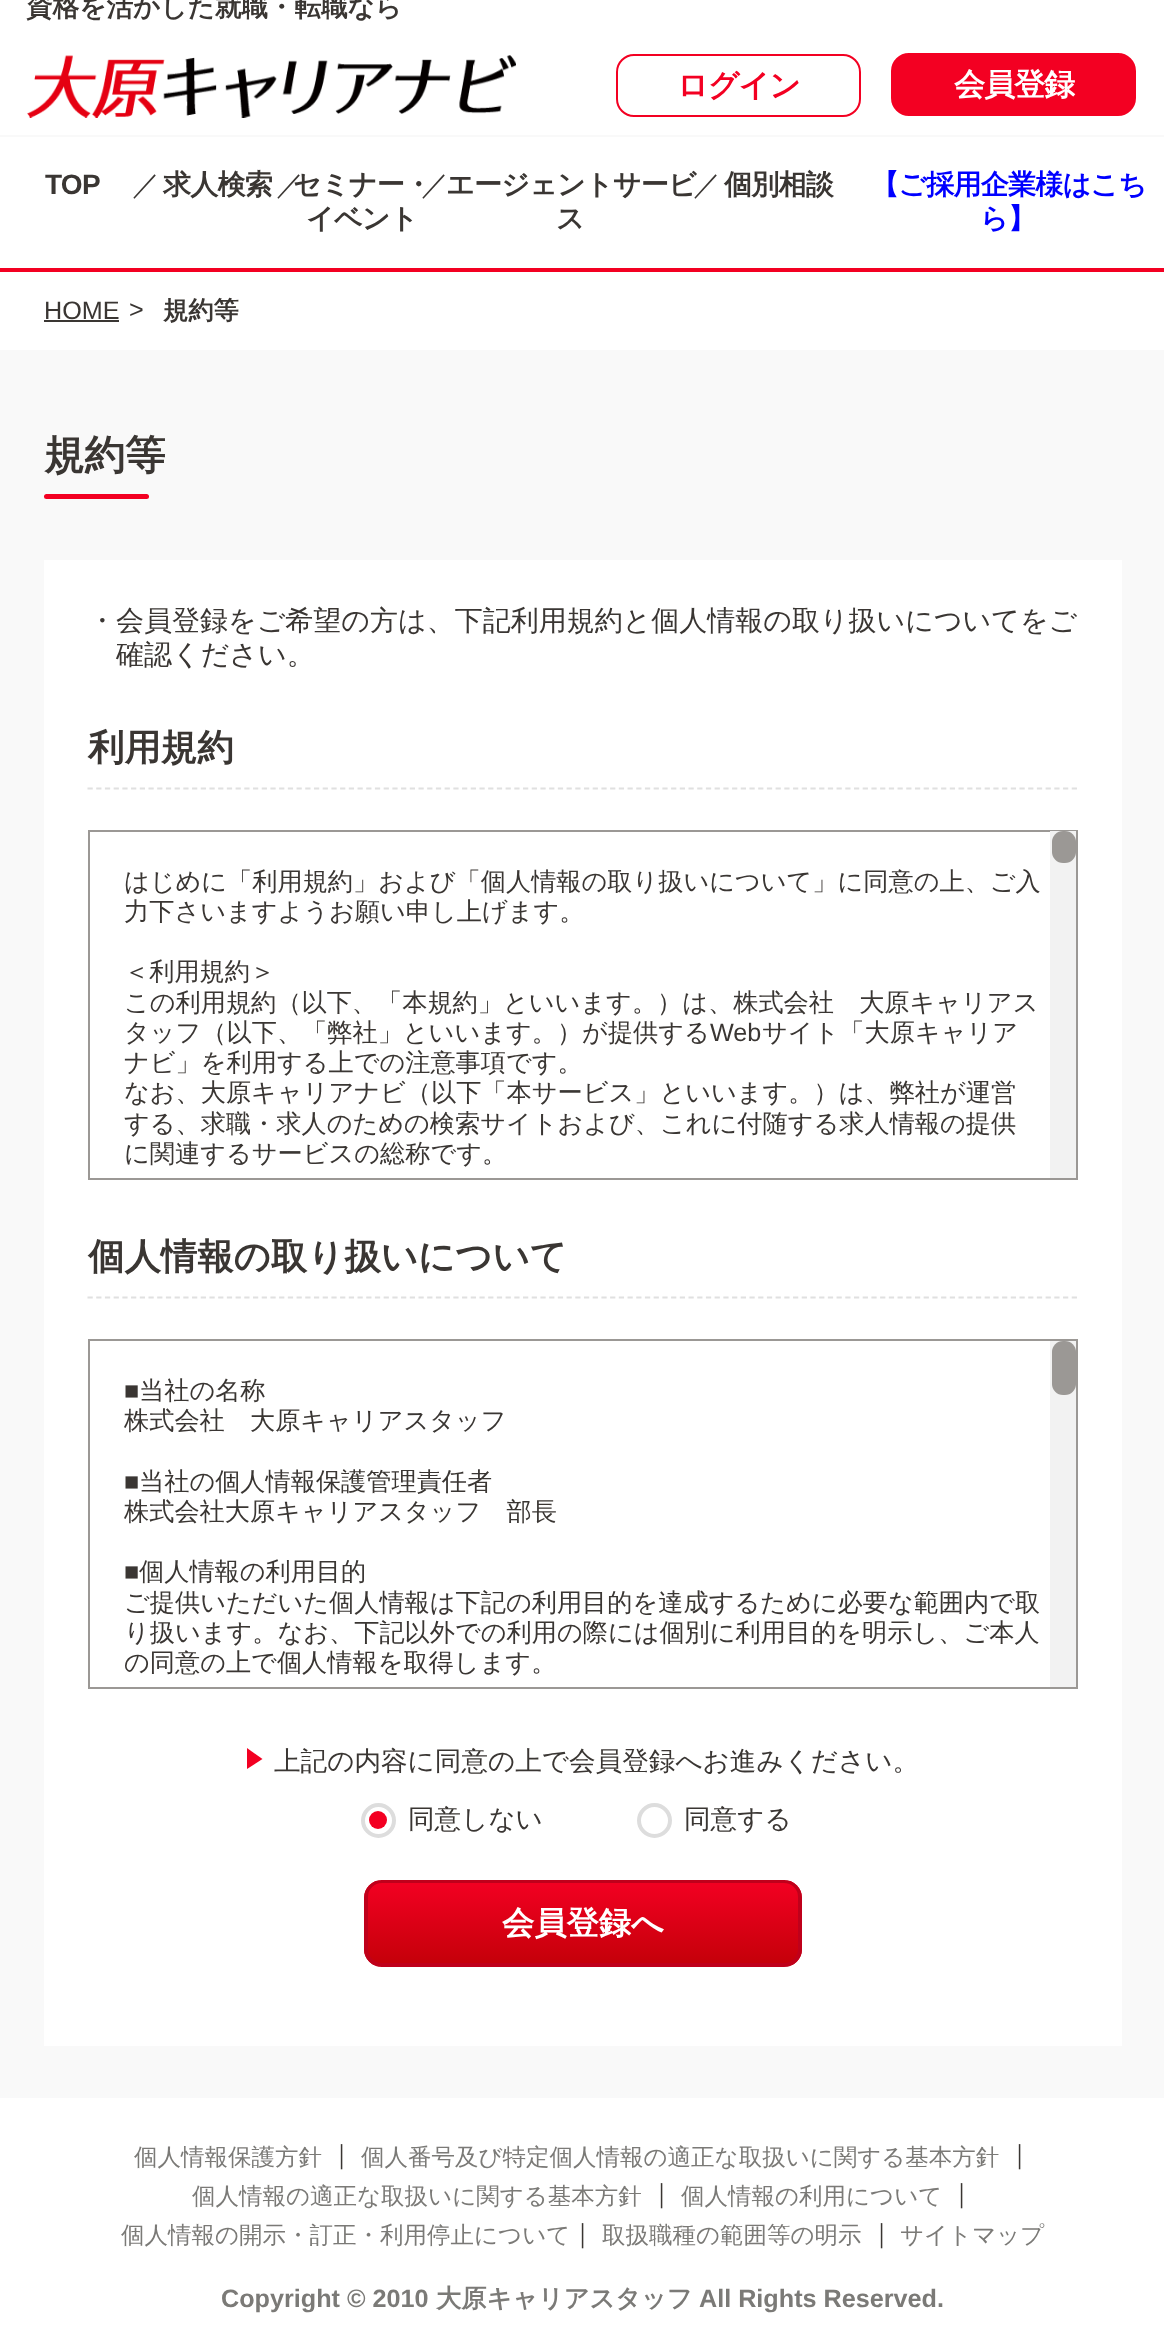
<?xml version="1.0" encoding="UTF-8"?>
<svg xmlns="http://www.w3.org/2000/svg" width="1164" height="2348">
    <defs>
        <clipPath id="clip1"><rect x="364" y="1880" width="438" height="87" rx="18"/></clipPath>
        <linearGradient id="g1" gradientUnits="userSpaceOnUse" x1="583" y1="1881" x2="583" y2="1965"><stop offset="0" stop-color="#F30022"/><stop offset="1" stop-color="#C40009"/></linearGradient>
    </defs>
    <rect width="100%" height="100%" fill="#FFFFFF"/>
    <rect x="0" y="268" width="1164" height="4" fill="#F30022"/>
    <text x="26" y="16" font-family="WenQuanYi Zen Hei" font-size="26.6" font-weight="700" fill="#3A3633">資格を活かした就職・転職なら</text>
    <rect x="0" y="135" width="1164" height="2" fill="#F9F9F9"/>
    <image x="27" y="55" width="489" height="63" href="img_01.png"/>
    <rect x="617" y="55" width="243" height="61" rx="17" fill="none" stroke="#F30022" stroke-width="2"/>
    <text x="677" y="96" font-family="WenQuanYi Zen Hei" font-size="31" font-weight="700" letter-spacing="-1" fill="#F30022">ログイン</text>
    <rect x="892" y="54" width="243" height="61" rx="17" fill="#F30022" stroke="#F30022" stroke-width="2"/>
    <text x="954" y="95" font-family="WenQuanYi Zen Hei" font-size="31" font-weight="700" letter-spacing="-1" fill="#FFFFFF">会員登録</text>
    <text x="45" y="194" font-family="Liberation Sans" font-size="28" font-weight="700" letter-spacing="-0.75" fill="#3A3633">TOP</text>
    <text x="132" y="194" font-family="WenQuanYi Zen Hei" font-size="28" font-weight="500" letter-spacing="-0.75" fill="#3A3633">／</text>
    <text x="163" y="194" font-family="WenQuanYi Zen Hei" font-size="28" font-weight="700" letter-spacing="-0.75" fill="#3A3633">求人検索</text>
    <text x="276" y="194" font-family="WenQuanYi Zen Hei" font-size="28" font-weight="500" letter-spacing="-0.75" fill="#3A3633">／</text>
    <text x="293" y="194" font-family="WenQuanYi Zen Hei" font-size="28" font-weight="700" letter-spacing="-0.75" fill="#3A3633">セミナー・</text>
    <text x="421" y="194" font-family="WenQuanYi Zen Hei" font-size="28" font-weight="500" letter-spacing="-0.75" fill="#3A3633">／</text>
    <text x="306" y="228" font-family="WenQuanYi Zen Hei" font-size="28" font-weight="700" letter-spacing="-0.75" fill="#3A3633">イベント</text>
    <text x="446" y="194" font-family="WenQuanYi Zen Hei" font-size="28" font-weight="700" letter-spacing="-0.75" fill="#3A3633">エージェントサービ</text>
    <text x="693" y="194" font-family="WenQuanYi Zen Hei" font-size="28" font-weight="500" letter-spacing="-0.75" fill="#3A3633">／</text>
    <text x="556" y="228" font-family="WenQuanYi Zen Hei" font-size="28" font-weight="700" letter-spacing="-0.75" fill="#3A3633">ス</text>
    <text x="724" y="194" font-family="WenQuanYi Zen Hei" font-size="28" font-weight="700" letter-spacing="-0.75" fill="#3A3633">個別相談</text>
    <text x="871" y="194" font-family="WenQuanYi Zen Hei" font-size="28" font-weight="700" letter-spacing="-0.75" fill="#0000FF">【ご採用企業様はこち</text>
    <text x="980" y="228" font-family="WenQuanYi Zen Hei" font-size="28" font-weight="700" letter-spacing="-0.75" fill="#0000FF">ら】</text>
    <text x="44" y="319" font-family="Liberation Sans" font-size="25.2" fill="#3A3633">HOME</text>
    <rect x="44" y="320" width="75" height="2" fill="#3A3633"/>
    <text x="129" y="318" font-family="Liberation Sans" font-size="25.2" fill="#3A3633">&gt;</text>
    <text x="163" y="319" font-family="WenQuanYi Zen Hei" font-size="25.2" font-weight="700" fill="#3A3633">規約等</text>
    <rect x="0" y="350" width="1164" height="1748" fill="#F9F9F9"/>
    <text x="44" y="469" font-family="WenQuanYi Zen Hei" font-size="40.5" font-weight="700" fill="#3A3633">規約等</text>
    <rect x="44" y="494" width="105" height="5" rx="2.5" fill="#F30022"/>
    <rect x="44" y="560" width="1078" height="1486" fill="#FFFFFF"/>
    <text x="88" y="630" font-family="WenQuanYi Zen Hei" font-size="28" font-weight="500" fill="#3A3633">・会員登録をご希望の方は、下記利用規約と個人情報の取り扱いについてをご</text>
    <text x="116" y="664" font-family="WenQuanYi Zen Hei" font-size="28" font-weight="500" fill="#3A3633">確認ください。</text>
    <path d="M 87.5 788.5 H 1078" fill="none" stroke="#E0E0E0" stroke-width="1.8" stroke-dasharray="5.25 3.46"/>
    <text x="88" y="760" font-family="WenQuanYi Zen Hei" font-size="36.4" font-weight="700" fill="#3A3633">利用規約</text>
    <rect x="89" y="831" width="988" height="348" fill="none" stroke="#9B9895" stroke-width="2"/>
    <text font-family="WenQuanYi Zen Hei" font-size="25.2" font-weight="500" fill="#3A3633">
        <tspan x="124" y="890">はじめに「利用規約」および「個人情報の取り扱いについて」に同意の上、ご入</tspan>
        <tspan x="124" y="920">力下さいますようお願い申し上げます。</tspan>
    </text>
    <text font-family="WenQuanYi Zen Hei" font-size="25.2" font-weight="500" fill="#3A3633">
        <tspan x="124" y="980">＜利用規約＞</tspan>
        <tspan x="124" y="1011">この利用規約（以下、「本規約」といいます。）は、株式会社　大原キャリアス</tspan>
        <tspan x="124" y="1041">タッフ（以下、「弊社」といいます。）が提供する</tspan>
    </text>
    <text x="710" y="1041" font-family="Liberation Sans" font-size="25.2" fill="#3A3633">Web</text>
    <text x="762" y="1041" font-family="WenQuanYi Zen Hei" font-size="25.2" font-weight="500" fill="#3A3633">サイト「大原キャリア</text>
    <text font-family="WenQuanYi Zen Hei" font-size="25.2" font-weight="500" fill="#3A3633">
        <tspan x="124" y="1071">ナビ」を利用する上での注意事項です。</tspan>
        <tspan x="124" y="1101">なお、大原キャリアナビ（以下「本サービス」といいます。）は、弊社が運営</tspan>
        <tspan x="124" y="1132">する、求職・求人のための検索サイトおよび、これに付随する求人情報の提供</tspan>
        <tspan x="124" y="1162">に関連するサービスの総称です。</tspan>
    </text>
    <rect x="1050" y="831" width="26" height="347" fill="#F2F2F2"/>
    <rect x="1052" y="831" width="24" height="32" rx="11" fill="#9B9895"/>
    <path d="M 87.5 1297.5 H 1078" fill="none" stroke="#E0E0E0" stroke-width="1.8" stroke-dasharray="5.25 3.46"/>
    <text x="88" y="1269" font-family="WenQuanYi Zen Hei" font-size="36.4" font-weight="700" fill="#3A3633">個人情報の取り扱いについて</text>
    <rect x="89" y="1340" width="988" height="348" fill="none" stroke="#9B9895" stroke-width="2"/>
    <text x="124" y="1399" font-family="Liberation Sans" font-size="25.2" fill="#3A3633">■</text>
    <text x="139" y="1399" font-family="WenQuanYi Zen Hei" font-size="25.2" font-weight="500" fill="#3A3633">当社の名称</text>
    <text x="124" y="1429" font-family="WenQuanYi Zen Hei" font-size="25.2" font-weight="500" fill="#3A3633">株式会社　大原キャリアスタッフ</text>
    <text x="124" y="1490" font-family="Liberation Sans" font-size="25.2" fill="#3A3633">■</text>
    <text x="139" y="1490" font-family="WenQuanYi Zen Hei" font-size="25.2" font-weight="500" fill="#3A3633">当社の個人情報保護管理責任者</text>
    <text x="124" y="1520" font-family="WenQuanYi Zen Hei" font-size="25.2" font-weight="500" fill="#3A3633">株式会社大原キャリアスタッフ　部長</text>
    <text x="124" y="1580" font-family="Liberation Sans" font-size="25.2" fill="#3A3633">■</text>
    <text x="139" y="1580" font-family="WenQuanYi Zen Hei" font-size="25.2" font-weight="500" fill="#3A3633">個人情報の利用目的</text>
    <text font-family="WenQuanYi Zen Hei" font-size="25.2" font-weight="500" fill="#3A3633">
        <tspan x="124" y="1611">ご提供いただいた個人情報は下記の利用目的を達成するために必要な範囲内で取</tspan>
        <tspan x="124" y="1641">り扱います。なお、下記以外での利用の際には個別に利用目的を明示し、ご本人</tspan>
        <tspan x="124" y="1671">の同意の上で個人情報を取得します。</tspan>
    </text>
    <rect x="1050" y="1341" width="26" height="346" fill="#F2F2F2"/>
    <rect x="1052" y="1341" width="24" height="54" rx="11" fill="#9B9895"/>
    <path d="M 247 1769 V 1748 L 262.5 1759 Z" fill="#F30022"/>
    <text x="274" y="1770" font-family="WenQuanYi Zen Hei" font-size="26.6" font-weight="500" fill="#3A3633">上記の内容に同意の上で会員登録へお進みください。</text>
    <circle cx="378" cy="1820" r="9" fill="#F30022"/>
    <circle cx="378.5" cy="1820.5" r="15.5" fill="none" stroke="#DDDDDD" stroke-width="4"/>
    <text x="408" y="1828" font-family="WenQuanYi Zen Hei" font-size="26.6" font-weight="500" fill="#3A3633">同意しない</text>
    <circle cx="654.5" cy="1820.5" r="15.5" fill="none" stroke="#DDDDDD" stroke-width="4"/>
    <text x="684" y="1828" font-family="WenQuanYi Zen Hei" font-size="26.6" font-weight="500" fill="#3A3633">同意する</text>
    <g clip-path="url(#clip1)">
        <rect x="364" y="1881" width="438" height="84" fill="url(#g1)"/>
    </g>
    <rect x="367" y="1882" width="432" height="82" rx="15" fill="none" stroke="#BF001B" stroke-width="2"/>
    <rect x="365" y="1881" width="436" height="85" rx="17" fill="none" stroke="#BF001B" stroke-width="2"/>
    <text x="502" y="1934" font-family="WenQuanYi Zen Hei" font-size="32.25" font-weight="700" fill="#FFFFFF">会員登録へ</text>
    <text x="134" y="2165" font-family="WenQuanYi Zen Hei" font-size="23.5" font-weight="500" fill="#7B7A77">個人情報保護方針</text>
    <text x="329" y="2163" font-family="WenQuanYi Zen Hei" font-size="25.2" font-weight="500" fill="#3A3633">｜</text>
    <text x="361" y="2165" font-family="WenQuanYi Zen Hei" font-size="23.5" font-weight="500" fill="#7B7A77">個人番号及び特定個人情報の適正な取扱いに関する基本方針</text>
    <text x="1007" y="2163" font-family="WenQuanYi Zen Hei" font-size="25.2" font-weight="500" fill="#3A3633">｜</text>
    <text x="192" y="2204" font-family="WenQuanYi Zen Hei" font-size="23.5" font-weight="500" fill="#7B7A77">個人情報の適正な取扱いに関する基本方針</text>
    <text x="649" y="2202" font-family="WenQuanYi Zen Hei" font-size="25.2" font-weight="500" fill="#3A3633">｜</text>
    <text x="681" y="2204" font-family="WenQuanYi Zen Hei" font-size="23.5" font-weight="500" fill="#7B7A77">個人情報の利用について</text>
    <text x="949" y="2202" font-family="WenQuanYi Zen Hei" font-size="25.2" font-weight="500" fill="#3A3633">｜</text>
    <text x="121" y="2243" font-family="WenQuanYi Zen Hei" font-size="23.5" font-weight="500" fill="#7B7A77">個人情報の開示・訂正・利用停止について</text>
    <text x="570" y="2242" font-family="WenQuanYi Zen Hei" font-size="25.2" font-weight="500" fill="#3A3633">｜</text>
    <text x="602" y="2243" font-family="WenQuanYi Zen Hei" font-size="23.5" font-weight="500" fill="#7B7A77">取扱職種の範囲等の明示</text>
    <text x="869" y="2242" font-family="WenQuanYi Zen Hei" font-size="25.2" font-weight="500" fill="#3A3633">｜</text>
    <text x="900" y="2243" font-family="WenQuanYi Zen Hei" font-size="23.5" font-weight="500" fill="#7B7A77">サイトマップ</text>
    <text x="221" y="2307" font-family="Liberation Sans" font-size="25.2" font-weight="700" fill="#7B7A77">Copyright © 2010</text>
    <text x="436" y="2307" font-family="WenQuanYi Zen Hei" font-size="25.2" font-weight="700" fill="#7B7A77">大原キャリアスタッフ</text>
    <text x="699" y="2307" font-family="Liberation Sans" font-size="25.2" font-weight="700" fill="#7B7A77">All Rights Reserved.</text>
</svg>
